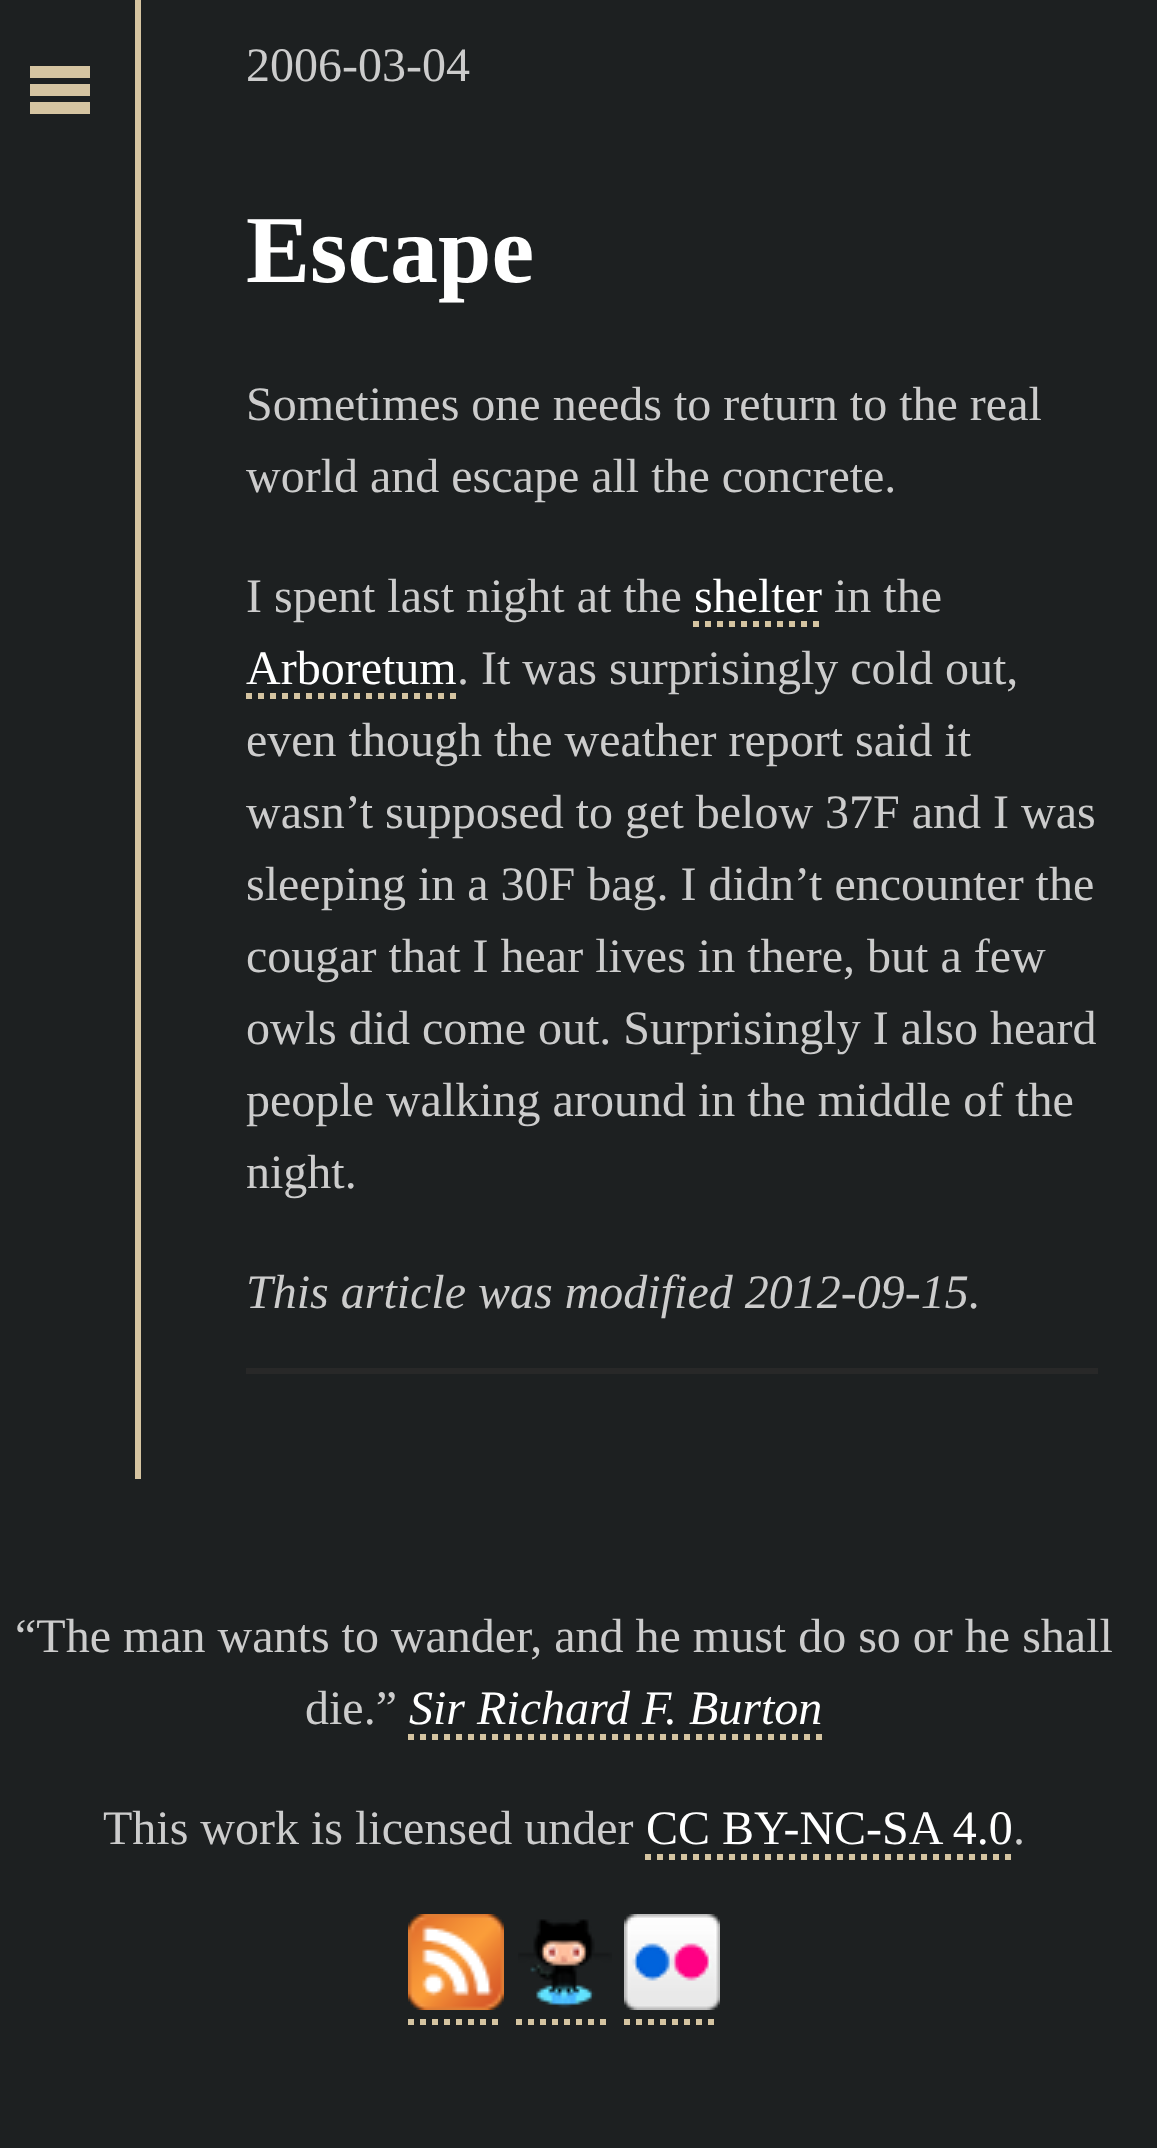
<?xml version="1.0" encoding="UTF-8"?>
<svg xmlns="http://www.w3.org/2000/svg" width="1157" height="2148">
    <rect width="100%" height="100%" fill="#1D2021"/>
    <rect x="135" y="0" width="6" height="1479" fill="#D5C4A1"/>
    <rect x="30" y="66" width="60" height="12" fill="#D5C4A1"/>
    <rect x="30" y="84" width="60" height="12" fill="#D5C4A1"/>
    <rect x="30" y="102" width="60" height="12" fill="#D5C4A1"/>
    <text x="246" y="81" font-family="Liberation Serif" font-size="48" fill="#CCCCCC">2006-03-04</text>
    <rect x="246" y="1368" width="852" height="6" fill="#282828"/>
    <text x="246" y="282" font-family="Liberation Serif" font-size="96" font-weight="700" fill="#FFFFFF">Escape</text>
    <text font-family="Liberation Serif" font-size="48" fill="#CCCCCC">
        <tspan x="246" y="420">Sometimes one needs to return to the real</tspan>
        <tspan x="246" y="492">world and escape all the concrete.</tspan>
    </text>
    <text x="246" y="612" font-family="Liberation Serif" font-size="48" fill="#CCCCCC">I spent last night at the</text>
    <text x="694" y="612" font-family="Liberation Serif" font-size="48" fill="#FFFFFF">shelter</text>
    <path d="M 693 624 H 822" fill="none" stroke="#D5C4A1" stroke-width="6" stroke-dasharray="6 6"/>
    <text x="834" y="612" font-family="Liberation Serif" font-size="48" fill="#CCCCCC">in the</text>
    <text x="246" y="684" font-family="Liberation Serif" font-size="48" fill="#FFFFFF">Arboretum</text>
    <path d="M 246 696 H 456" fill="none" stroke="#D5C4A1" stroke-width="6" stroke-dasharray="6 6"/>
    <text x="457" y="684" font-family="Liberation Serif" font-size="48" fill="#CCCCCC">. It was surprisingly cold out,</text>
    <text font-family="Liberation Serif" font-size="48" fill="#CCCCCC">
        <tspan x="246" y="756">even though the weather report said it</tspan>
        <tspan x="246" y="828">wasn’t supposed to get below 37F and I was</tspan>
        <tspan x="246" y="900">sleeping in a 30F bag. I didn’t encounter the</tspan>
        <tspan x="246" y="972">cougar that I hear lives in there, but a few</tspan>
        <tspan x="246" y="1044">owls did come out. Surprisingly I also heard</tspan>
        <tspan x="246" y="1116">people walking around in the middle of the</tspan>
        <tspan x="246" y="1188">night.</tspan>
    </text>
    <text x="246" y="1308" font-family="Liberation Serif" font-size="48" font-style="italic" fill="#CCCCCC">This article was modified 2012-09-15.</text>
    <text x="15" y="1652" font-family="Liberation Serif" font-size="48" fill="#CCCCCC">“The man wants to wander, and he must do so or he shall</text>
    <text x="305" y="1724" font-family="Liberation Serif" font-size="48" fill="#CCCCCC">die.”</text>
    <text x="409" y="1724" font-family="Liberation Serif" font-size="48" font-style="italic" fill="#FFFFFF">Sir Richard F. Burton</text>
    <path d="M 408 1737 H 822" fill="none" stroke="#D5C4A1" stroke-width="6" stroke-dasharray="6 6"/>
    <text x="103" y="1844" font-family="Liberation Serif" font-size="48" fill="#CCCCCC">This work is licensed under</text>
    <text x="646" y="1844" font-family="Liberation Serif" font-size="48" fill="#FFFFFF">CC BY-NC-SA 4.0</text>
    <path d="M 645 1857 H 1014" fill="none" stroke="#D5C4A1" stroke-width="6" stroke-dasharray="6 6"/>
    <text x="1013" y="1844" font-family="Liberation Serif" font-size="48" fill="#CCCCCC">.</text>
    <image x="408" y="1914" width="96" height="96" href="img_01.png"/>
    <image x="518" y="1919" width="94" height="89" href="img_02.png"/>
    <image x="624" y="1914" width="96" height="96" href="img_03.png"/>
    <path d="M 408 2022 H 504" fill="none" stroke="#D5C4A1" stroke-width="6" stroke-dasharray="6 6"/>
    <path d="M 516 2022 H 612" fill="none" stroke="#D5C4A1" stroke-width="6" stroke-dasharray="6 6"/>
    <path d="M 624 2022 H 720" fill="none" stroke="#D5C4A1" stroke-width="6" stroke-dasharray="6 6"/>
</svg>
